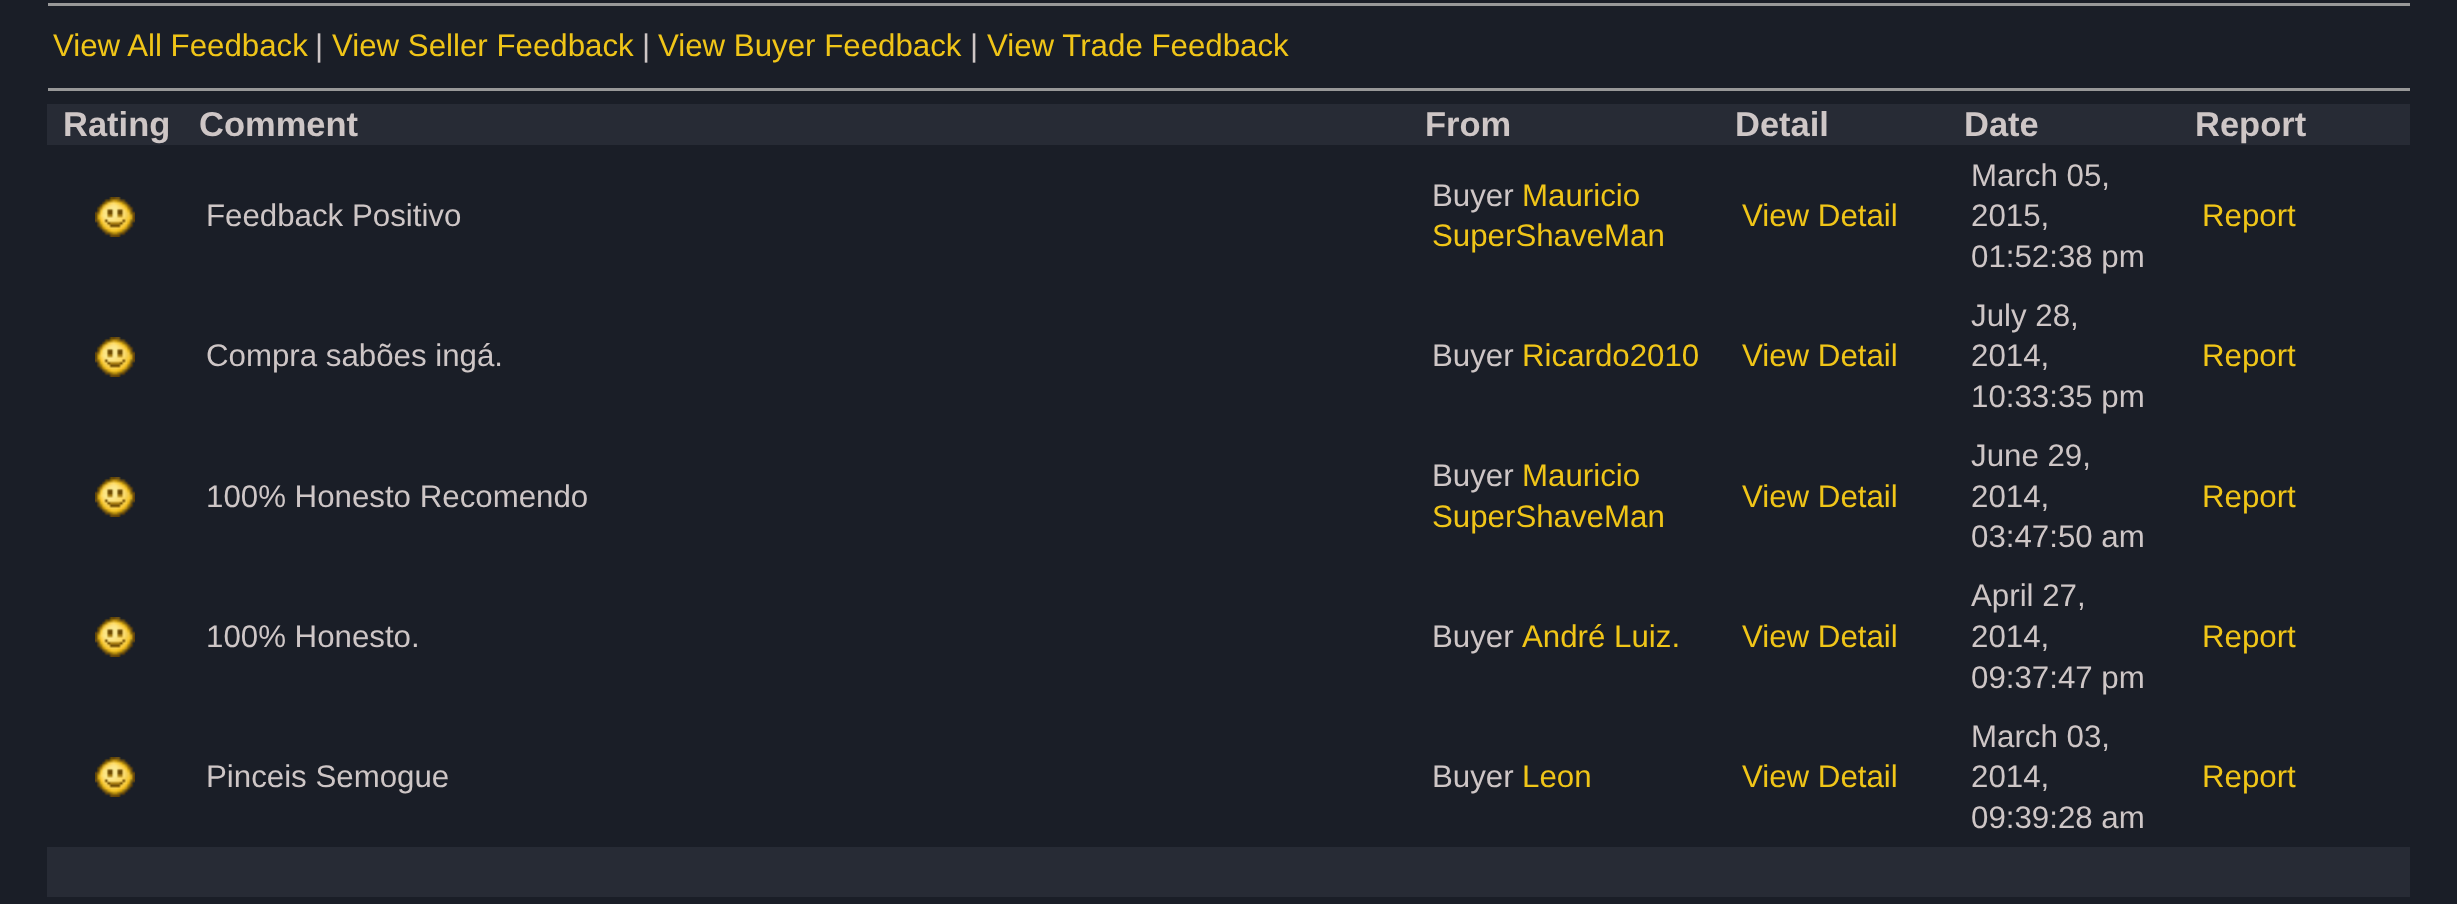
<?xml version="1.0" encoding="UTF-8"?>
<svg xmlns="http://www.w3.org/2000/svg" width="2457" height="904">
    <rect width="100%" height="100%" fill="#1A1E27"/>
    <rect x="48" y="3" width="2362" height="3" fill="#989898"/>
    <text x="53" y="56" font-family="Liberation Sans" font-size="31.25" fill="#F0C518">View All Feedback</text>
    <text x="315" y="56" font-family="Liberation Sans" font-size="31.25" fill="#CEC6C6">|</text>
    <text x="332" y="56" font-family="Liberation Sans" font-size="31.25" fill="#F0C518">View Seller Feedback</text>
    <text x="642" y="56" font-family="Liberation Sans" font-size="31.25" fill="#CEC6C6">|</text>
    <text x="658" y="56" font-family="Liberation Sans" font-size="31.25" fill="#F0C518">View Buyer Feedback</text>
    <text x="970" y="56" font-family="Liberation Sans" font-size="31.25" fill="#CEC6C6">|</text>
    <text x="987" y="56" font-family="Liberation Sans" font-size="31.25" fill="#F0C518">View Trade Feedback</text>
    <rect x="48" y="88" width="2362" height="3" fill="#989898"/>
    <rect x="47" y="104" width="2363" height="41" fill="#272B35"/>
    <text x="63" y="136" font-family="Liberation Sans" font-size="34.5" font-weight="700" fill="#CEC6C6">Rating</text>
    <text x="199" y="136" font-family="Liberation Sans" font-size="34.5" font-weight="700" fill="#CEC6C6">Comment</text>
    <text x="1425" y="136" font-family="Liberation Sans" font-size="34.5" font-weight="700" fill="#CEC6C6">From</text>
    <text x="1735" y="136" font-family="Liberation Sans" font-size="34.5" font-weight="700" fill="#CEC6C6">Detail</text>
    <text x="1964" y="136" font-family="Liberation Sans" font-size="34.5" font-weight="700" fill="#CEC6C6">Date</text>
    <text x="2195" y="136" font-family="Liberation Sans" font-size="34.5" font-weight="700" fill="#CEC6C6">Report</text>
    <image x="95" y="197" width="40" height="40" href="img_01.png"/>
    <text x="206" y="226" font-family="Liberation Sans" font-size="31.25" fill="#CEC6C6">Feedback Positivo</text>
    <text x="1432" y="206" font-family="Liberation Sans" font-size="31.25" fill="#CEC6C6">Buyer</text>
    <text x="1522" y="206" font-family="Liberation Sans" font-size="31.25" fill="#F0C518">Mauricio</text>
    <text x="1432" y="246" font-family="Liberation Sans" font-size="31.25" fill="#F0C518">SuperShaveMan</text>
    <text x="1742" y="226" font-family="Liberation Sans" font-size="31.25" fill="#F0C518">View Detail</text>
    <text font-family="Liberation Sans" font-size="31.25" fill="#CEC6C6">
        <tspan x="1971" y="186">March 05,</tspan>
        <tspan x="1971" y="226">2015,</tspan>
        <tspan x="1971" y="267">01:52:38 pm</tspan>
    </text>
    <text x="2202" y="226" font-family="Liberation Sans" font-size="31.25" fill="#F0C518">Report</text>
    <image x="95" y="337" width="40" height="40" href="img_01.png"/>
    <text x="206" y="366" font-family="Liberation Sans" font-size="31.25" fill="#CEC6C6">Compra sabões ingá.</text>
    <text x="1432" y="366" font-family="Liberation Sans" font-size="31.25" fill="#CEC6C6">Buyer</text>
    <text x="1522" y="366" font-family="Liberation Sans" font-size="31.25" fill="#F0C518">Ricardo2010</text>
    <text x="1742" y="366" font-family="Liberation Sans" font-size="31.25" fill="#F0C518">View Detail</text>
    <text font-family="Liberation Sans" font-size="31.25" fill="#CEC6C6">
        <tspan x="1971" y="326">July 28,</tspan>
        <tspan x="1971" y="366">2014,</tspan>
        <tspan x="1971" y="407">10:33:35 pm</tspan>
    </text>
    <text x="2202" y="366" font-family="Liberation Sans" font-size="31.25" fill="#F0C518">Report</text>
    <image x="95" y="477" width="40" height="40" href="img_01.png"/>
    <text x="206" y="507" font-family="Liberation Sans" font-size="31.25" fill="#CEC6C6">100% Honesto Recomendo</text>
    <text x="1432" y="486" font-family="Liberation Sans" font-size="31.25" fill="#CEC6C6">Buyer</text>
    <text x="1522" y="486" font-family="Liberation Sans" font-size="31.25" fill="#F0C518">Mauricio</text>
    <text x="1432" y="527" font-family="Liberation Sans" font-size="31.25" fill="#F0C518">SuperShaveMan</text>
    <text x="1742" y="507" font-family="Liberation Sans" font-size="31.25" fill="#F0C518">View Detail</text>
    <text font-family="Liberation Sans" font-size="31.25" fill="#CEC6C6">
        <tspan x="1971" y="466">June 29,</tspan>
        <tspan x="1971" y="507">2014,</tspan>
        <tspan x="1971" y="547">03:47:50 am</tspan>
    </text>
    <text x="2202" y="507" font-family="Liberation Sans" font-size="31.25" fill="#F0C518">Report</text>
    <image x="95" y="617" width="40" height="40" href="img_01.png"/>
    <text x="206" y="647" font-family="Liberation Sans" font-size="31.25" fill="#CEC6C6">100% Honesto.</text>
    <text x="1432" y="647" font-family="Liberation Sans" font-size="31.25" fill="#CEC6C6">Buyer</text>
    <text x="1522" y="647" font-family="Liberation Sans" font-size="31.25" fill="#F0C518">André Luiz.</text>
    <text x="1742" y="647" font-family="Liberation Sans" font-size="31.25" fill="#F0C518">View Detail</text>
    <text font-family="Liberation Sans" font-size="31.25" fill="#CEC6C6">
        <tspan x="1971" y="606">April 27,</tspan>
        <tspan x="1971" y="647">2014,</tspan>
        <tspan x="1971" y="688">09:37:47 pm</tspan>
    </text>
    <text x="2202" y="647" font-family="Liberation Sans" font-size="31.25" fill="#F0C518">Report</text>
    <image x="95" y="757" width="40" height="40" href="img_01.png"/>
    <text x="206" y="787" font-family="Liberation Sans" font-size="31.25" fill="#CEC6C6">Pinceis Semogue</text>
    <text x="1432" y="787" font-family="Liberation Sans" font-size="31.25" fill="#CEC6C6">Buyer</text>
    <text x="1522" y="787" font-family="Liberation Sans" font-size="31.25" fill="#F0C518">Leon</text>
    <text x="1742" y="787" font-family="Liberation Sans" font-size="31.25" fill="#F0C518">View Detail</text>
    <text font-family="Liberation Sans" font-size="31.25" fill="#CEC6C6">
        <tspan x="1971" y="747">March 03,</tspan>
        <tspan x="1971" y="787">2014,</tspan>
        <tspan x="1971" y="828">09:39:28 am</tspan>
    </text>
    <text x="2202" y="787" font-family="Liberation Sans" font-size="31.25" fill="#F0C518">Report</text>
    <rect x="47" y="847" width="2363" height="50" fill="#272B35"/>
</svg>
